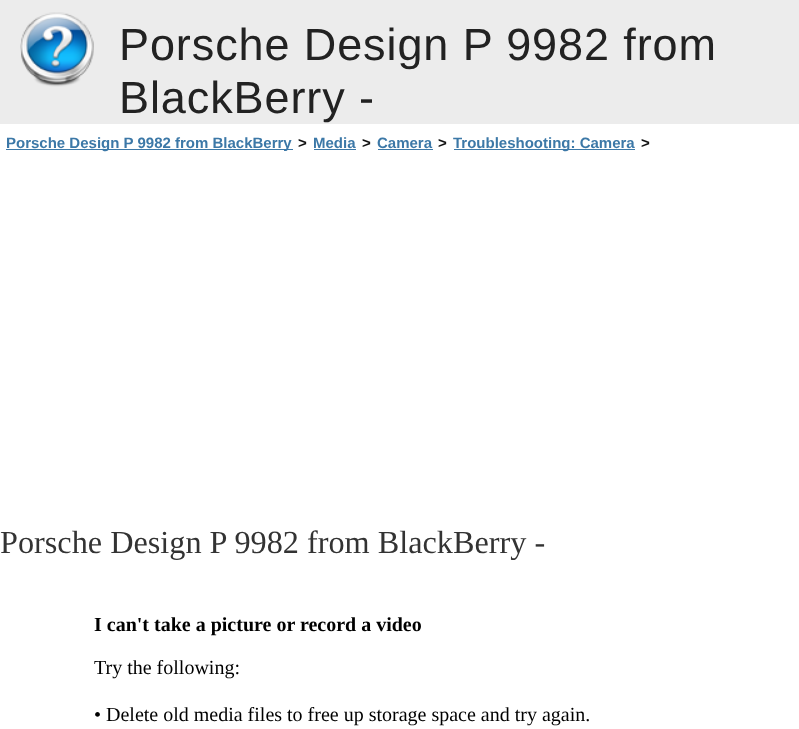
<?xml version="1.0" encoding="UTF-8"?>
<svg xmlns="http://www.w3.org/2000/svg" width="799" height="729">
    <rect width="100%" height="100%" fill="#ECECEC"/>
    <image x="20" y="12" width="74" height="75" href="img_01.png"/>
    <text font-family="Liberation Sans" font-size="45" letter-spacing="0.9" fill="#222222">
        <tspan x="119" y="60">Porsche Design P 9982 from</tspan>
        <tspan x="119" y="113">BlackBerry -</tspan>
    </text>
    <rect x="0" y="124" width="799" height="605" fill="#FFFFFF"/>
    <rect x="6" y="149" width="287" height="1" fill="#3C78A7"/>
    <text x="6" y="148" font-family="Liberation Sans" font-size="15" font-weight="700" fill="#3C78A7">Porsche Design P 9982 from BlackBerry</text>
    <text x="298" y="148" font-family="Liberation Sans" font-size="15" font-weight="700" fill="#111111">&gt;</text>
    <text x="313" y="148" font-family="Liberation Sans" font-size="15" font-weight="700" fill="#3C78A7">Media</text>
    <rect x="314" y="149" width="42" height="1" fill="#3C78A7"/>
    <text x="362" y="148" font-family="Liberation Sans" font-size="15" font-weight="700" fill="#111111">&gt;</text>
    <text x="377" y="148" font-family="Liberation Sans" font-size="15" font-weight="700" fill="#3C78A7">Camera</text>
    <rect x="378" y="149" width="55" height="1" fill="#3C78A7"/>
    <text x="438" y="148" font-family="Liberation Sans" font-size="15" font-weight="700" fill="#111111">&gt;</text>
    <rect x="454" y="149" width="181" height="1" fill="#3C78A7"/>
    <text x="453" y="148" font-family="Liberation Sans" font-size="15" font-weight="700" fill="#3C78A7">Troubleshooting: Camera</text>
    <text x="641" y="148" font-family="Liberation Sans" font-size="15" font-weight="700" fill="#111111">&gt;</text>
    <text x="0" y="553" font-family="Liberation Serif" font-size="32.25" fill="#333333">Porsche Design P 9982 from BlackBerry -</text>
    <text x="94" y="631" font-family="Liberation Serif" font-size="20" font-weight="700" fill="#000000">I can't take a picture or record a video</text>
    <text x="94" y="674" font-family="Liberation Serif" font-size="20" fill="#000000">Try the following:</text>
    <text x="94" y="721" font-family="Liberation Serif" font-size="20" fill="#000000">• Delete old media files to free up storage space and try again.</text>
</svg>
